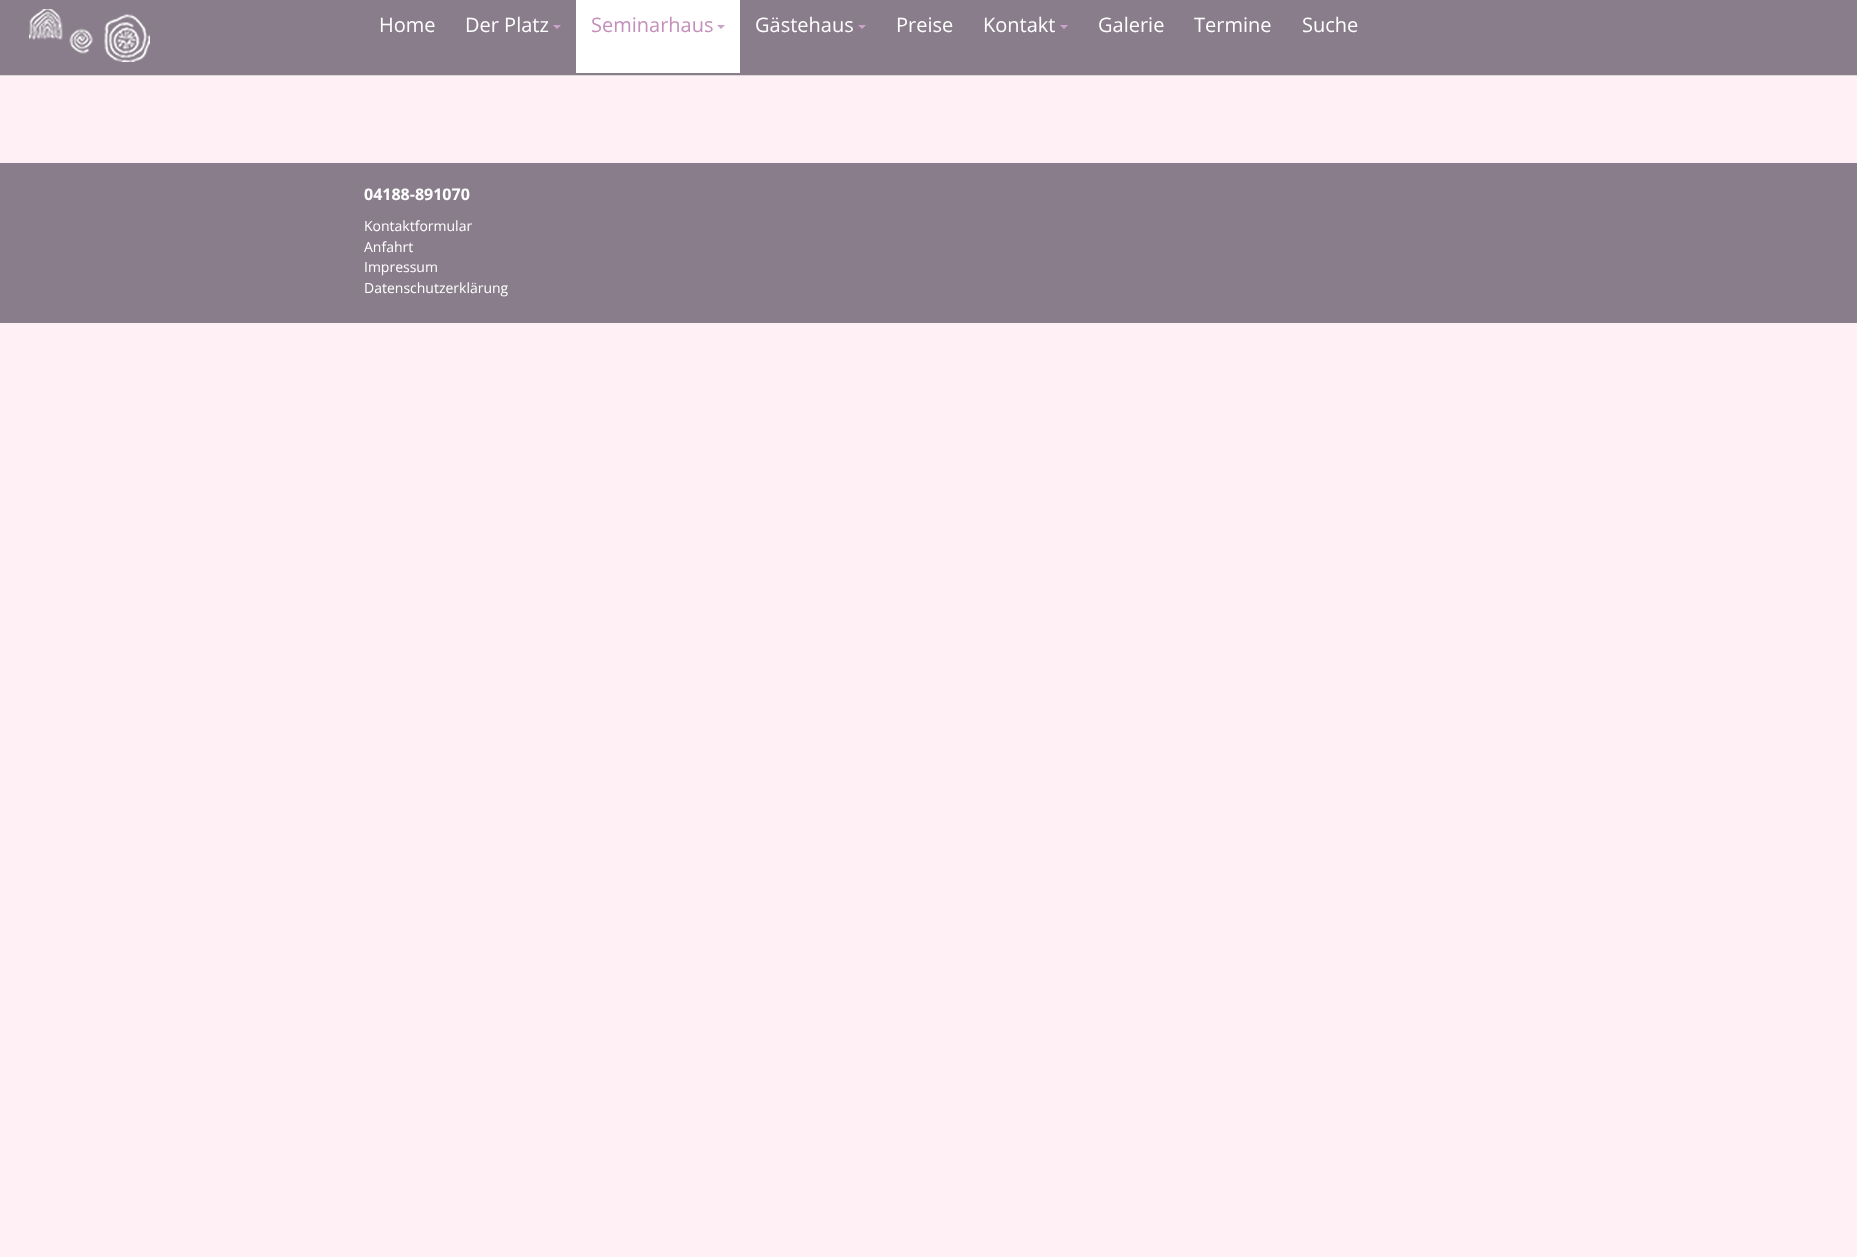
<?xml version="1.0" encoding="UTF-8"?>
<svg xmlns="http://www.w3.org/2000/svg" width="1857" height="1257">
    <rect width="100%" height="100%" fill="#FFF0F5"/>
    <rect x="0" y="0" width="1857" height="75" fill="#897D8B"/>
    <rect x="0" y="75" width="1857" height="1" fill="#D9D9D9"/>
    <image x="29" y="9" width="121" height="53" href="img_01.png"/>
    <text x="379" y="32" font-family="Open Sans" font-size="20" fill="#FFFFFF">Home</text>
    <text x="465" y="32" font-family="Open Sans" font-size="20" fill="#FFFFFF">Der Platz</text>
    <path d="M 553 25 H 561 L 557 29 Z" fill="#CCA3C6"/>
    <rect x="576" y="0" width="164" height="73" fill="#FFFFFF"/>
    <text x="591" y="32" font-family="Open Sans" font-size="20" fill="#C48FBA">Seminarhaus</text>
    <path d="M 717 25 H 725 L 721 29 Z" fill="#CCA3C6"/>
    <text x="755" y="32" font-family="Open Sans" font-size="20" fill="#FFFFFF">Gästehaus</text>
    <path d="M 858 25 H 866 L 862 29 Z" fill="#CCA3C6"/>
    <text x="896" y="32" font-family="Open Sans" font-size="20" fill="#FFFFFF">Preise</text>
    <text x="983" y="32" font-family="Open Sans" font-size="20" fill="#FFFFFF">Kontakt</text>
    <path d="M 1060 25 H 1068 L 1064 29 Z" fill="#CCA3C6"/>
    <text x="1098" y="32" font-family="Open Sans" font-size="20" fill="#FFFFFF">Galerie</text>
    <text x="1194" y="32" font-family="Open Sans" font-size="20" fill="#FFFFFF">Termine</text>
    <text x="1302" y="32" font-family="Open Sans" font-size="20" fill="#FFFFFF">Suche</text>
    <rect x="0" y="163" width="1857" height="160" fill="#897D8B"/>
    <text x="364" y="200" font-family="Open Sans" font-size="16" font-weight="700" fill="#FFFFFF">04188-891070</text>
    <text font-family="Open Sans" font-size="14" fill="#FFFFFF">
        <tspan x="364" y="231">Kontaktformular</tspan>
        <tspan x="364" y="252">Anfahrt</tspan>
        <tspan x="364" y="272">Impressum</tspan>
        <tspan x="364" y="293">Datenschutzerklärung</tspan>
    </text>
</svg>
